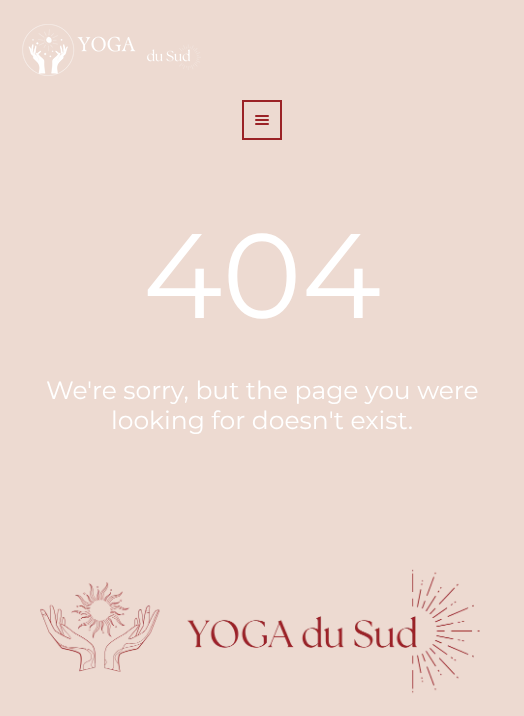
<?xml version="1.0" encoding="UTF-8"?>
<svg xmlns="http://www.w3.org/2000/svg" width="524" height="716">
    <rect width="100%" height="100%" fill="#EDDAD1"/>
    <image x="22" y="24" width="179" height="52" href="img_01.png"/>
    <rect x="243" y="101" width="38" height="38" fill="none" stroke="#9B2226" stroke-width="2"/>
    <image x="255" y="115" width="14" height="10" href="img_02.png"/>
    <text x="143" y="318" font-family="Montserrat" font-size="120" fill="#FFFFFF">404</text>
    <text x="46" y="399" font-family="Montserrat" font-size="25" fill="#FFFFFF">We're sorry, but the page you were</text>
    <text x="111" y="429" font-family="Montserrat" font-size="25" fill="#FFFFFF">looking for doesn't exist.</text>
    <image x="40" y="569" width="440" height="125" href="img_03.png"/>
</svg>
